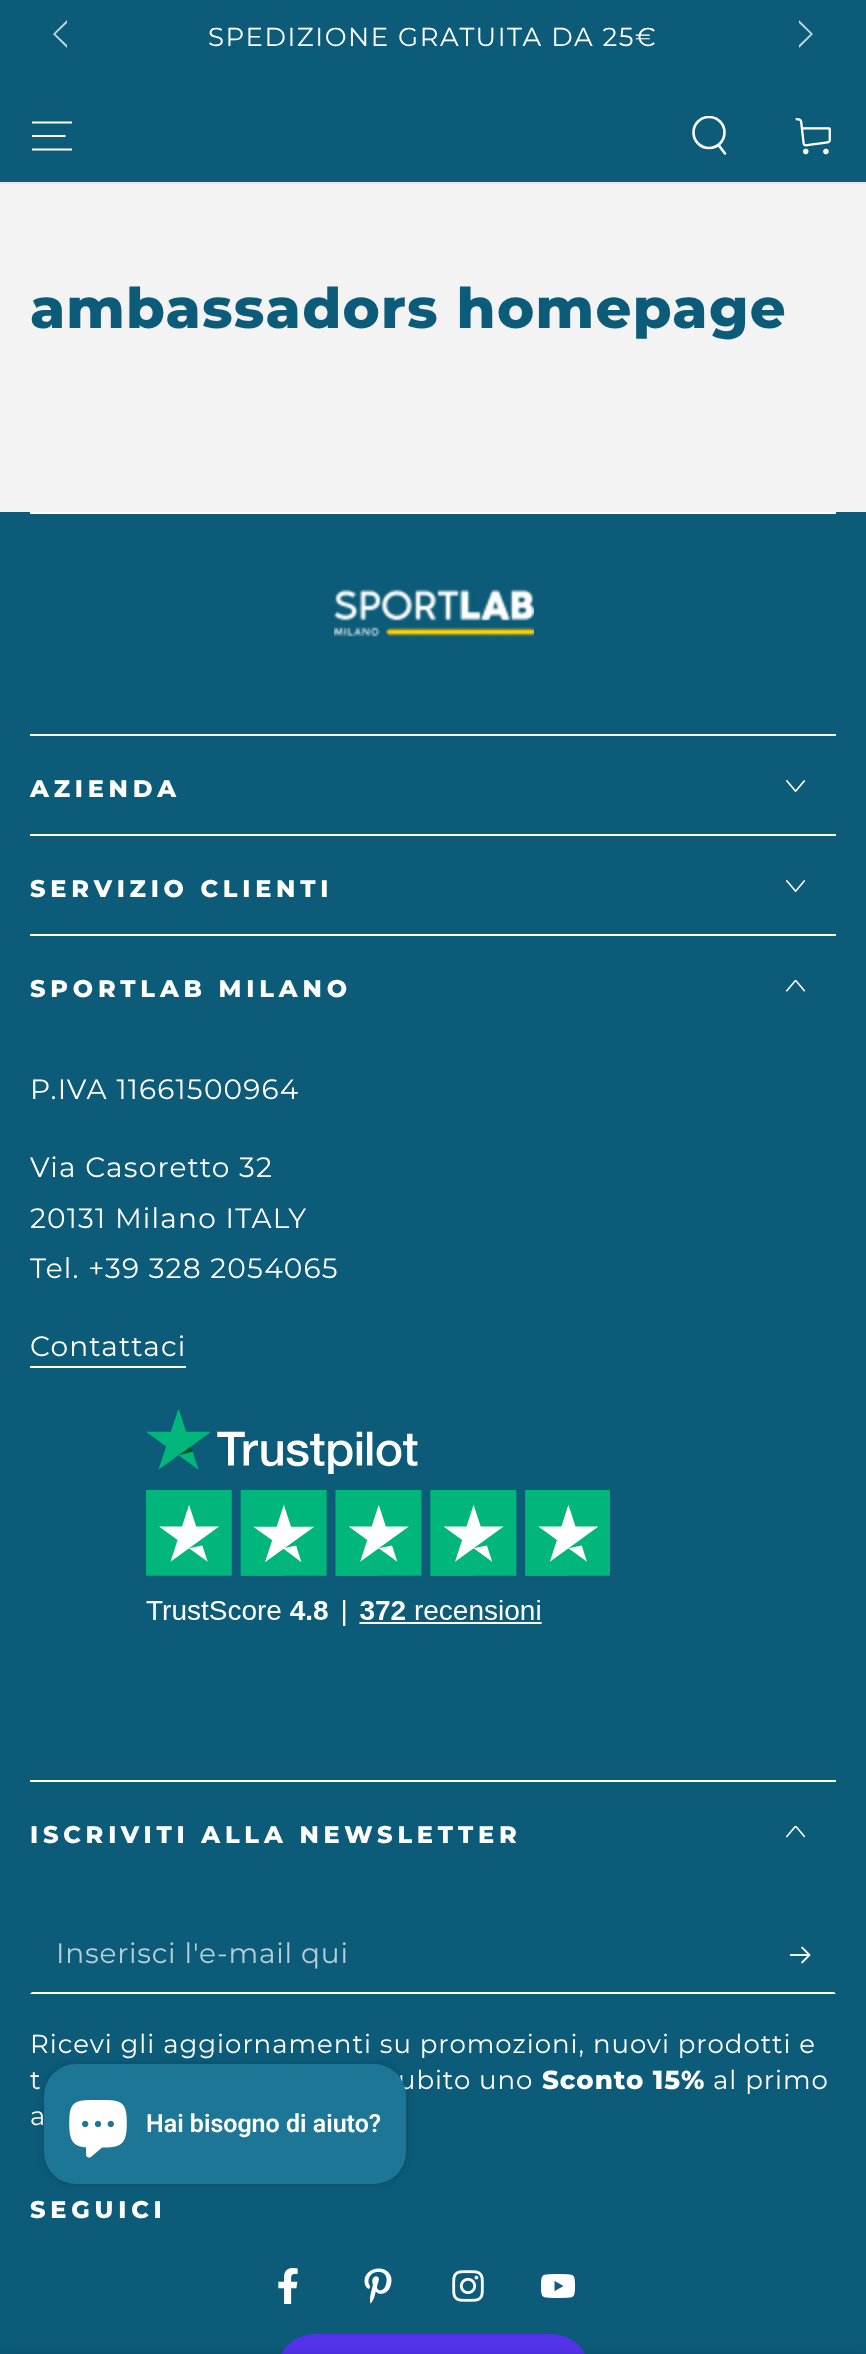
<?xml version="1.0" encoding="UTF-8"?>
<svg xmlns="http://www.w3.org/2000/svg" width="866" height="2354">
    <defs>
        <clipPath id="clip1"><rect x="690" y="116" width="40" height="40"/></clipPath>
        <filter id="blur1" x="-50%" y="-200%" width="200%" height="500%"><feGaussianBlur stdDeviation="5"/></filter>
        <filter id="blur2" x="-50%" y="-200%" width="200%" height="500%"><feGaussianBlur stdDeviation="8"/></filter>
    </defs>
    <rect width="100%" height="100%" fill="#F3F3F3"/>
    <rect x="0" y="182" width="866" height="2" fill="#E9EAEB"/>
    <rect x="0" y="0" width="866" height="182" fill="#0B5B79"/>
    <path d="M 32 149.5 H 72 M 32 136 H 65.5 M 32 122.5 H 72" fill="none" stroke="#FFFFFF" stroke-width="2.2"/>
    <g clip-path="url(#clip1)">
        <circle cx="709" cy="132.5" r="15.5" fill="none" stroke="#FFFFFF" stroke-width="2.6"/>
    </g>
    <path d="M 718.5 145 L 725 153.5" fill="none" stroke="#FFFFFF" stroke-width="2.6" stroke-linecap="round"/>
    <image x="795" y="118" width="36" height="37" href="img_01.png"/>
    <path d="M 53 34 L 67 48 V 45 L 55.5 34 L 67 23 V 20 Z" fill="#C2D6DE" fill-rule="evenodd"/>
    <path d="M 813 34 L 799 48 V 45 L 810.5 34 L 799 23 V 20 Z" fill="#C2D6DE" fill-rule="evenodd"/>
    <text x="208" y="46" font-family="Montserrat" font-size="26" letter-spacing="1.55" fill="#FFFFFF">SPEDIZIONE GRATUITA DA 25€</text>
    <text x="30" y="328" font-family="Montserrat" font-size="56" font-weight="800" letter-spacing="1.2" fill="#0B5B79">ambassadors homepage</text>
    <rect x="0" y="512" width="866" height="1842" fill="#0B5B79"/>
    <rect x="30" y="512" width="806" height="2" fill="#FFFFFF"/>
    <rect x="30" y="734" width="806" height="2" fill="#FFFFFF"/>
    <image x="334" y="589" width="200" height="48" href="img_02.png"/>
    <rect x="30" y="834" width="806" height="2" fill="#FFFFFF"/>
    <text x="30" y="797" font-family="Montserrat" font-size="24" font-weight="800" letter-spacing="4.8" fill="#FFFFFF">AZIENDA</text>
    <image x="786" y="780" width="20" height="12" href="img_03.png"/>
    <rect x="30" y="934" width="806" height="2" fill="#FFFFFF"/>
    <text x="30" y="897" font-family="Montserrat" font-size="24" font-weight="800" letter-spacing="4.8" fill="#FFFFFF">SERVIZIO CLIENTI</text>
    <image x="786" y="880" width="20" height="12" href="img_03.png"/>
    <rect x="30" y="1780" width="806" height="2" fill="#FFFFFF"/>
    <text x="30" y="997" font-family="Montserrat" font-size="24" font-weight="800" letter-spacing="4.8" fill="#FFFFFF">SPORTLAB MILANO</text>
    <image x="786" y="980" width="20" height="12" href="img_04.png"/>
    <text x="30" y="1099" font-family="Montserrat" font-size="28" letter-spacing="1.2" fill="#FFFFFF">P.IVA 11661500964</text>
    <text font-family="Montserrat" font-size="28" letter-spacing="1.2" fill="#FFFFFF">
        <tspan x="30" y="1177">Via Casoretto 32</tspan>
        <tspan x="30" y="1228">20131 Milano ITALY</tspan>
        <tspan x="30" y="1278">Tel. +39 328 2054065</tspan>
    </text>
    <text x="30" y="1356" font-family="Montserrat" font-size="28" letter-spacing="1.2" fill="#FFFFFF">Contattaci</text>
    <rect x="30" y="1366" width="156" height="2" fill="#FFFFFF"/>
    <image x="146" y="1408" width="464" height="218" href="img_05.png"/>
    <text x="30" y="1843" font-family="Montserrat" font-size="24" font-weight="800" letter-spacing="4.8" fill="#FFFFFF">ISCRIVITI ALLA NEWSLETTER</text>
    <image x="786" y="1826" width="20" height="12" href="img_06.png"/>
    <path d="M 836 1994 H 30 L 32 1992 H 834 Z" fill="#FFFFFF"/>
    <text x="56" y="1963" font-family="Montserrat" font-size="28" letter-spacing="0.8" fill="#B6CED7">Inserisci l'e-mail qui</text>
    <image x="790" y="1946" width="21" height="18" href="img_07.png"/>
    <text font-family="Montserrat" font-size="26" letter-spacing="1" fill="#FFFFFF">
        <tspan x="30" y="2053">Ricevi gli aggiornamenti su promozioni, nuovi prodotti e</tspan>
        <tspan x="30" y="2089">t</tspan>
    </text>
    <text x="398" y="2089" font-family="Montserrat" font-size="26" letter-spacing="1" fill="#FFFFFF">ubito uno</text>
    <text x="542" y="2089" font-family="Montserrat" font-size="26" font-weight="800" letter-spacing="1" fill="#FFFFFF">Sconto 15%</text>
    <text x="713" y="2089" font-family="Montserrat" font-size="26" letter-spacing="1" fill="#FFFFFF">al primo</text>
    <text x="30" y="2125" font-family="Montserrat" font-size="26" letter-spacing="1" fill="#FFFFFF">a</text>
    <text x="30" y="2218" font-family="Montserrat" font-size="24" font-weight="800" letter-spacing="4.8" fill="#FFFFFF">SEGUICI</text>
    <image x="278" y="2268" width="20" height="36" href="img_08.png"/>
    <image x="364" y="2268" width="28" height="36" href="img_09.png"/>
    <image x="452" y="2270" width="32" height="32" href="img_10.png"/>
    <image x="540" y="2274" width="36" height="24" href="img_11.png"/>
    <rect x="280" y="2334" width="306" height="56" rx="36" fill="#5433EB"/>
    <rect x="44" y="2064" width="362" height="120" rx="32" fill="#000000" fill-opacity="0.15" filter="url(#blur1)"/>
    <rect x="44" y="2064" width="362" height="120" rx="32" fill="#1E7696"/>
    <image x="69" y="2100" width="58" height="58" href="img_12.png"/>
    <text x="146" y="2132" font-family="Roboto" font-size="25" font-weight="600" fill="#FFFFFF">Hai bisogno di aiuto?</text>
    <rect x="0" y="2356" width="866" height="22" fill="#1A1B18" fill-opacity="0.15" filter="url(#blur2)"/>
</svg>
